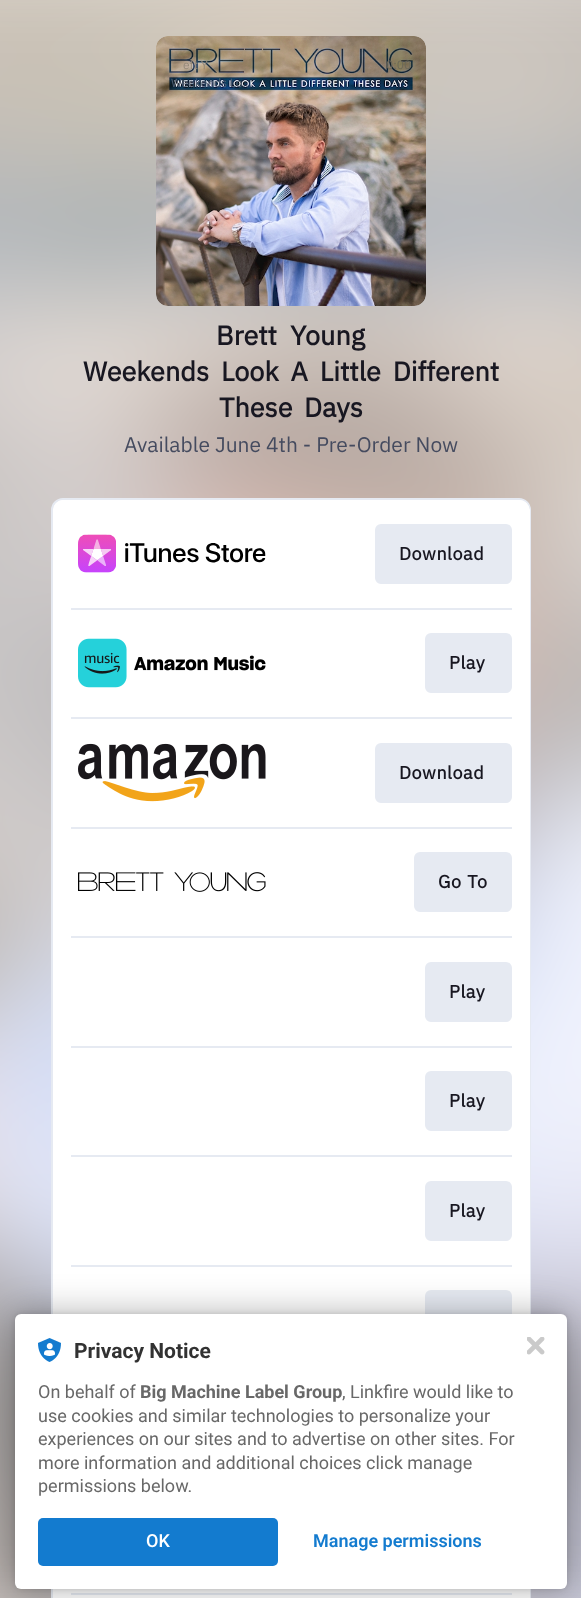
<?xml version="1.0" encoding="UTF-8"?>
<svg xmlns="http://www.w3.org/2000/svg" width="581" height="1598">
    <defs>
        <filter id="blur1" x="-50%" y="-200%" width="200%" height="500%"><feGaussianBlur stdDeviation="3"/></filter>
        <filter id="blur2" x="-50%" y="-200%" width="200%" height="500%"><feGaussianBlur stdDeviation="18"/></filter>
    </defs>
    <rect width="100%" height="100%" fill="#FFFFFF"/>
    <image x="0" y="0" width="581" height="1598" href="img_01.png"/>
    <image x="156" y="36" width="270" height="270" href="img_02.png"/>
    <text x="183" y="69" font-family="IBM Plex Sans" font-size="12" fill="#968A7A">ett Y</text>
    <text x="171" y="87" font-family="IBM Plex Sans" font-size="12" fill="#4F5F74">Weekends Lo…</text>
    <text x="386" y="69" font-family="IBM Plex Sans" font-size="12" fill="#6D6958">0:00</text>
    <text x="216" y="345" word-spacing="7" font-family="IBM Plex Sans" font-size="27" font-weight="700" fill="#181721">Brett Young</text>
    <text x="83" y="381" word-spacing="5.5" font-family="IBM Plex Sans" font-size="27" font-weight="700" fill="#181721">Weekends Look A Little Different</text>
    <text x="219" y="417" word-spacing="5" font-family="IBM Plex Sans" font-size="27" font-weight="700" fill="#181721">These Days</text>
    <text x="124" y="452" font-family="IBM Plex Sans" font-size="21" fill="#454B5F">Available June 4th - Pre-Order Now</text>
    <rect x="52" y="499" width="478" height="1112" rx="11" fill="#FFFFFF" stroke="#E6EAF2" stroke-width="2"/>
    <rect x="53" y="500" width="477" height="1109" rx="11" fill="#FFFFFF"/>
    <image x="78" y="534" width="188" height="39" href="img_03.png"/>
    <rect x="375" y="524" width="137" height="60" rx="6" fill="#E6EAF2"/>
    <text x="399" y="560" font-family="IBM Plex Sans" font-size="18" font-weight="700" letter-spacing="0.5" fill="#181721">Download</text>
    <rect x="71" y="608" width="441" height="2" fill="#E6EAF2"/>
    <image x="78" y="638" width="188" height="50" href="img_04.png"/>
    <rect x="425" y="633" width="87" height="60" rx="6" fill="#E6EAF2"/>
    <text x="449" y="669" font-family="IBM Plex Sans" font-size="18" font-weight="700" letter-spacing="0.5" fill="#181721">Play</text>
    <rect x="71" y="717" width="441" height="2" fill="#E6EAF2"/>
    <image x="78" y="743" width="188" height="59" href="img_05.png"/>
    <rect x="375" y="743" width="137" height="60" rx="6" fill="#E6EAF2"/>
    <text x="399" y="779" font-family="IBM Plex Sans" font-size="18" font-weight="700" letter-spacing="0.5" fill="#181721">Download</text>
    <rect x="71" y="827" width="441" height="2" fill="#E6EAF2"/>
    <image x="78" y="872" width="188" height="20" href="img_06.png"/>
    <rect x="414" y="852" width="98" height="60" rx="6" fill="#E6EAF2"/>
    <text x="438" y="888" word-spacing="1" font-family="IBM Plex Sans" font-size="18" font-weight="700" letter-spacing="0.5" fill="#181721">Go To</text>
    <rect x="71" y="936" width="441" height="2" fill="#E6EAF2"/>
    <rect x="425" y="962" width="87" height="60" rx="6" fill="#E6EAF2"/>
    <text x="449" y="998" font-family="IBM Plex Sans" font-size="18" font-weight="700" letter-spacing="0.5" fill="#181721">Play</text>
    <rect x="71" y="1046" width="441" height="2" fill="#E6EAF2"/>
    <rect x="425" y="1071" width="87" height="60" rx="6" fill="#E6EAF2"/>
    <text x="449" y="1107" font-family="IBM Plex Sans" font-size="18" font-weight="700" letter-spacing="0.5" fill="#181721">Play</text>
    <rect x="71" y="1155" width="441" height="2" fill="#E6EAF2"/>
    <rect x="425" y="1181" width="87" height="60" rx="6" fill="#E6EAF2"/>
    <text x="449" y="1217" font-family="IBM Plex Sans" font-size="18" font-weight="700" letter-spacing="0.5" fill="#181721">Play</text>
    <rect x="71" y="1265" width="441" height="2" fill="#E6EAF2"/>
    <rect x="425" y="1290" width="87" height="60" rx="6" fill="#E6EAF2"/>
    <rect x="71" y="1593" width="441" height="2" fill="#E6EAF2"/>
    <rect x="15" y="1314" width="552" height="275" rx="6" fill="#000000" fill-opacity="0.12" filter="url(#blur1)"/>
    <rect x="15" y="1314" width="552" height="275" rx="6" fill="#000000" fill-opacity="0.3" filter="url(#blur2)"/>
    <rect x="15" y="1314" width="552" height="275" rx="6" fill="#FFFFFF"/>
    <image x="38" y="1338" width="23" height="24" href="img_07.png"/>
    <text x="74" y="1358" font-family="Roboto" font-size="21" font-weight="700" fill="#323232">Privacy Notice</text>
    <text x="38" y="1398" font-family="Roboto" font-size="18" fill="#686868">On behalf of</text>
    <text x="140" y="1398" font-family="Roboto" font-size="18" font-weight="700" fill="#686868">Big Machine Label Group</text>
    <text x="342" y="1398" font-family="Roboto" font-size="18" fill="#686868">, Linkfire would like to</text>
    <text font-family="Roboto" font-size="18" fill="#686868">
        <tspan x="38" y="1422">use cookies and similar technologies to personalize your</tspan>
        <tspan x="38" y="1445">experiences on our sites and to advertise on other sites. For</tspan>
        <tspan x="38" y="1469">more information and additional choices click manage</tspan>
        <tspan x="38" y="1492">permissions below.</tspan>
    </text>
    <rect x="38" y="1518" width="240" height="48" rx="5" fill="#137BCF"/>
    <text x="146" y="1547" font-family="Roboto" font-size="18" font-weight="500" fill="#FFFFFF">OK</text>
    <text x="313" y="1547" font-family="Roboto" font-size="18" font-weight="600" fill="#137BCF">Manage permissions</text>
    <image x="527" y="1337" width="18" height="18" href="img_08.png"/>
</svg>
